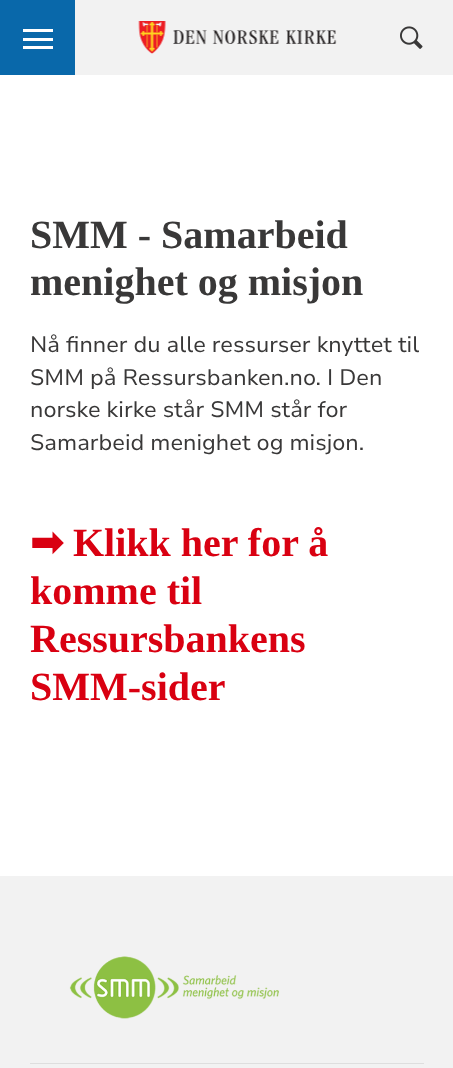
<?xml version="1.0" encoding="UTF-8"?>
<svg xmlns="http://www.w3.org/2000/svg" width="453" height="1068">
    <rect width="100%" height="100%" fill="#FFFFFF"/>
    <rect x="75" y="0" width="378" height="75" fill="#F2F2F2"/>
    <rect x="0" y="0" width="75" height="75" fill="#0968AA"/>
    <rect x="23" y="29" width="30" height="3" fill="#FFFFFF"/>
    <rect x="23" y="38" width="30" height="3" fill="#FFFFFF"/>
    <rect x="23" y="46" width="30" height="3" fill="#FFFFFF"/>
    <image x="138" y="21" width="199" height="33" href="img_01.png"/>
    <image x="400" y="26" width="23" height="23" href="img_02.png"/>
    <text font-family="Liberation Serif" font-size="40" font-weight="700" fill="#393838">
        <tspan x="30" y="248">SMM - Samarbeid</tspan>
        <tspan x="30" y="295">menighet og misjon</tspan>
    </text>
    <text font-family="Nunito Sans" font-size="22.5" fill="#393838">
        <tspan x="30" y="352">Nå finner du alle ressurser knyttet til</tspan>
        <tspan x="30" y="385">SMM på Ressursbanken.no. I Den</tspan>
        <tspan x="30" y="417">norske kirke står SMM står for</tspan>
        <tspan x="30" y="450">Samarbeid menighet og misjon.</tspan>
    </text>
    <text x="30" y="556" font-family="DejaVu Sans" font-size="40" font-weight="700" fill="#D90011">➡</text>
    <text x="73" y="556" font-family="Liberation Serif" font-size="40" font-weight="700" fill="#D90011">Klikk her for å</text>
    <text font-family="Liberation Serif" font-size="40" font-weight="700" fill="#D90011">
        <tspan x="30" y="604">komme til</tspan>
        <tspan x="30" y="652">Ressursbankens</tspan>
        <tspan x="30" y="700">SMM-sider</tspan>
    </text>
    <rect x="0" y="876" width="453" height="192" fill="#F2F2F2"/>
    <rect x="30" y="1063" width="394" height="1" fill="#DEDEDE"/>
    <image x="69" y="956" width="210" height="63" href="img_03.png"/>
</svg>
